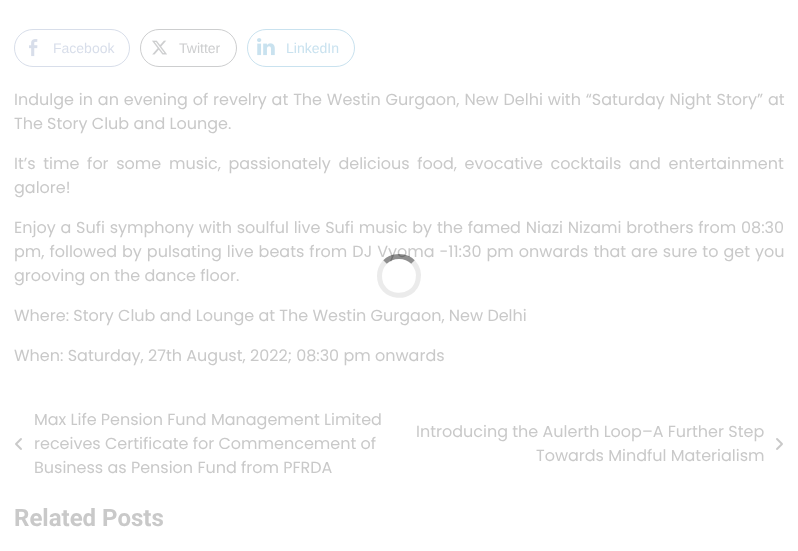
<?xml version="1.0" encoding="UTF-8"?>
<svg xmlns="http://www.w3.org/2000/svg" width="798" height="551">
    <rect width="100%" height="100%" fill="#FFFFFF"/>
    <rect x="14.5" y="29.5" width="115" height="37" rx="18.5" fill="none" stroke="#D8DEEA"/>
    <image x="29" y="39" width="9" height="18" href="img_01.png"/>
    <text x="53" y="53" font-family="Liberation Sans" font-size="14" fill="#D8DEEA">Facebook</text>
    <rect x="140.5" y="29.5" width="96" height="37" rx="18.5" fill="none" stroke="#CDCECF"/>
    <image x="152" y="40" width="15" height="15" href="img_02.png"/>
    <text x="179" y="53" font-family="Liberation Sans" font-size="14" fill="#CDCECF">Twitter</text>
    <rect x="247.5" y="29.5" width="107" height="37" rx="18.5" fill="none" stroke="#C9E2EF"/>
    <image x="257" y="38" width="18" height="18" href="img_03.png"/>
    <text x="286" y="53" font-family="Liberation Sans" font-size="14" fill="#C9E2EF">LinkedIn</text>
    <text font-family="Poppins" font-size="16" fill="#C9C9C9">
        <tspan x="14" y="105" word-spacing="0.6">Indulge in an evening of revelry at The Westin Gurgaon, New Delhi with “Saturday Night Story” at</tspan>
        <tspan x="14" y="129">The Story Club and Lounge.</tspan>
    </text>
    <text font-family="Poppins" font-size="16" fill="#C9C9C9">
        <tspan x="14" y="169" word-spacing="3.4">It’s time for some music, passionately delicious food, evocative cocktails and entertainment</tspan>
        <tspan x="14" y="193">galore!</tspan>
    </text>
    <text font-family="Poppins" font-size="16" fill="#C9C9C9">
        <tspan x="14" y="233" word-spacing="0.5">Enjoy a Sufi symphony with soulful live Sufi music by the famed Niazi Nizami brothers from 08:30</tspan>
        <tspan x="14" y="257" word-spacing="0.75">pm, followed by pulsating live beats from DJ Vyoma -11:30 pm onwards that are sure to get you</tspan>
        <tspan x="14" y="281">grooving on the dance floor.</tspan>
    </text>
    <text x="14" y="321" font-family="Poppins" font-size="16" fill="#C9C9C9">Where: Story Club and Lounge at The Westin Gurgaon, New Delhi</text>
    <text x="14" y="361" font-family="Poppins" font-size="16" fill="#C9C9C9">When: Saturday, 27th August, 2022; 08:30 pm onwards</text>
    <image x="15" y="438" width="7" height="12" href="img_04.png"/>
    <text font-family="Poppins" font-size="16" fill="#C9C9C9">
        <tspan x="34" y="425">Max Life Pension Fund Management Limited</tspan>
        <tspan x="34" y="449">receives Certificate for Commencement of</tspan>
        <tspan x="34" y="473">Business as Pension Fund from PFRDA</tspan>
    </text>
    <text x="416" y="437" font-family="Poppins" font-size="16" fill="#C9C9C9">Introducing the Aulerth Loop–A Further Step</text>
    <text x="536" y="461" font-family="Poppins" font-size="16" fill="#C9C9C9">Towards Mindful Materialism</text>
    <image x="776" y="438" width="7" height="12" href="img_05.png"/>
    <text x="14" y="526" font-family="Roboto" font-size="24" font-weight="700" fill="#C9C9C9">Related Posts</text>
    <path d="M 385 262 C 392.5 254.5 405.5 254.5 413 262" fill="none" stroke="#000000" stroke-opacity="0.44" stroke-width="5"/>
    <path d="M 413 262 C 417.5 267 419.5 273.5 418 280 C 413.5 302.5 379.5 299.5 379.5 276 C 379.5 271 381.5 266 385 262" fill="none" stroke="#9D9D9D" stroke-opacity="0.2" stroke-width="5"/>
</svg>
